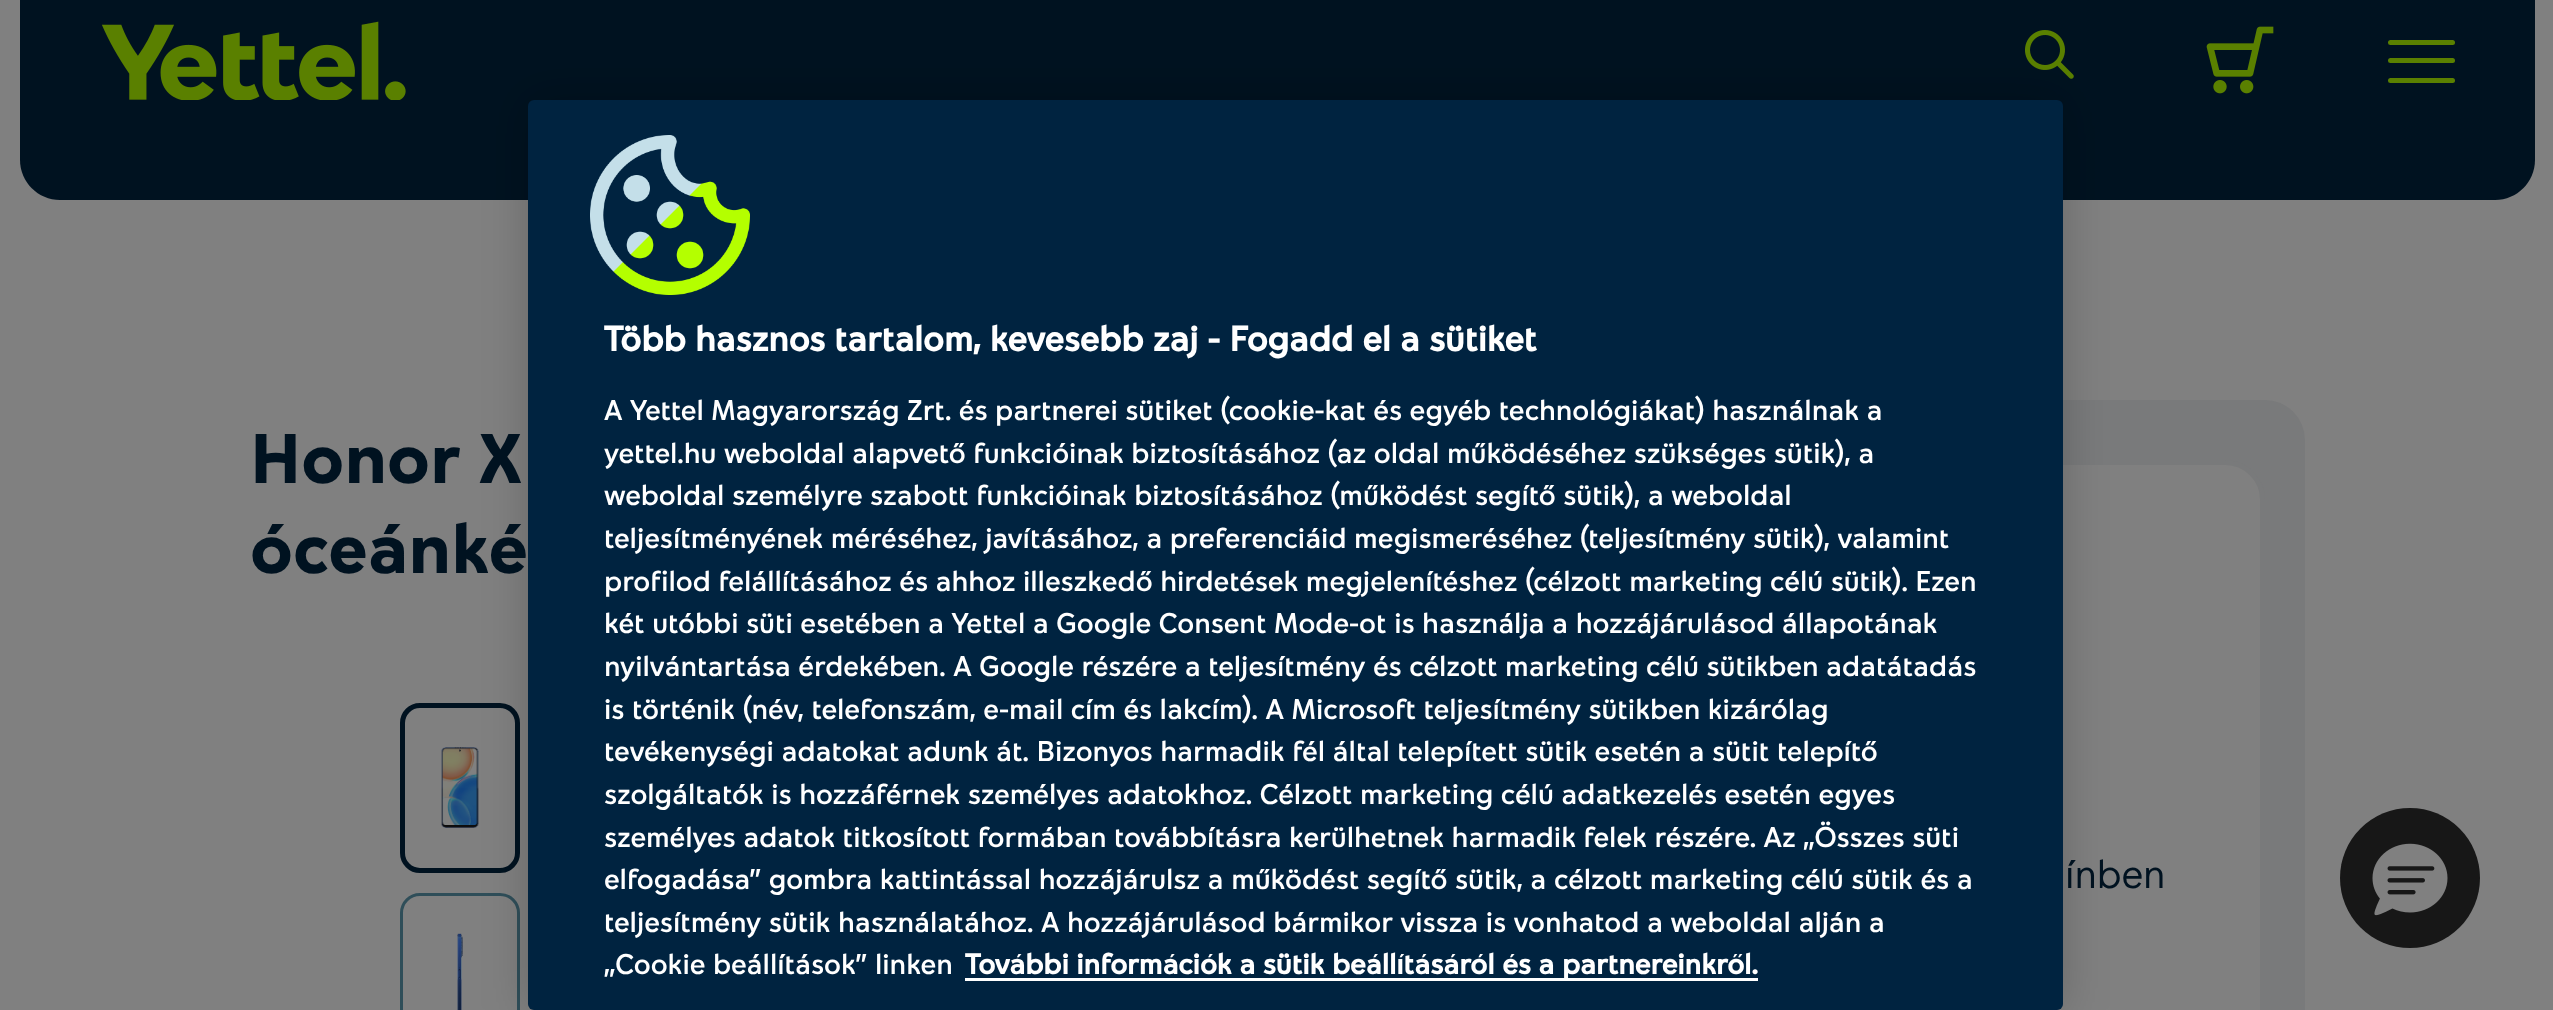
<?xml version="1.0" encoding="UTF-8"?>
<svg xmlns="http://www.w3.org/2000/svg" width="2553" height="1010">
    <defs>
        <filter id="blur1" x="-50%" y="-200%" width="200%" height="500%"><feGaussianBlur stdDeviation="22.5"/></filter>
    </defs>
    <rect width="100%" height="100%" fill="#808080"/>
    <path d="M 20 0 H 2535 V 160 C 2535 182 2517 200 2495 200 H 60 C 38 200 20 182 20 160 Z" fill="#001220"/>
    <image x="101" y="21" width="305" height="79" href="img_01.png"/>
    <image x="2025" y="30" width="49" height="49" href="img_02.png"/>
    <image x="2206" y="26" width="68" height="68" href="img_03.png"/>
    <rect x="2388" y="40" width="67" height="5" rx="2.5" fill="#5A8000"/>
    <rect x="2388" y="58" width="67" height="5" rx="2.5" fill="#5A8000"/>
    <rect x="2388" y="78" width="67" height="5" rx="2.5" fill="#5A8000"/>
    <rect x="402.5" y="705.5" width="115" height="165" rx="17.5" fill="none" stroke="#001220" stroke-width="5"/>
    <image x="441" y="747" width="38" height="81" href="img_05.png"/>
    <rect x="401.5" y="894.5" width="117" height="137" rx="18.5" fill="none" stroke="#2F4E59" stroke-width="3"/>
    <image x="457" y="933" width="6" height="77" href="img_06.png"/>
    <rect x="1430" y="400" width="875" height="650" rx="40" fill="#797A7B"/>
    <rect x="1472.5" y="462.5" width="790" height="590" rx="37.5" fill="#808080" stroke="#797A7B" stroke-width="5"/>
    <rect x="528" y="100" width="1535" height="910" rx="6" fill="#000000" fill-opacity="0.2" filter="url(#blur1)"/>
    <rect x="528" y="100" width="1535" height="910" rx="6" fill="#002340"/>
    <image x="590" y="135" width="160" height="160" href="img_04.png"/>
    <text x="604" y="351" font-family="'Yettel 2'" font-size="35" font-weight="700" fill="#FFFFFF">Több hasznos tartalom, kevesebb zaj - Fogadd el a sütiket</text>
    <text font-family="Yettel" font-size="28.45" fill="#FFFFFF">
        <tspan x="604" y="420">A Yettel Magyarország Zrt. és partnerei sütiket (cookie-kat és egyéb technológiákat) használnak a</tspan>
        <tspan x="604" y="463">yettel.hu weboldal alapvető funkcióinak biztosításához (az oldal működéséhez szükséges sütik), a</tspan>
        <tspan x="604" y="505">weboldal személyre szabott funkcióinak biztosításához (működést segítő sütik), a weboldal</tspan>
        <tspan x="604" y="548">teljesítményének méréséhez, javításához, a preferenciáid megismeréséhez (teljesítmény sütik), valamint</tspan>
        <tspan x="604" y="591">profilod felállításához és ahhoz illeszkedő hirdetések megjelenítéshez (célzott marketing célú sütik). Ezen</tspan>
        <tspan x="604" y="633">két utóbbi süti esetében a Yettel a Google Consent Mode-ot is használja a hozzájárulásod állapotának</tspan>
        <tspan x="604" y="676">nyilvántartása érdekében. A Google részére a teljesítmény és célzott marketing célú sütikben adatátadás</tspan>
        <tspan x="604" y="719">is történik (név, telefonszám, e-mail cím és lakcím). A Microsoft teljesítmény sütikben kizárólag</tspan>
        <tspan x="604" y="761">tevékenységi adatokat adunk át. Bizonyos harmadik fél által telepített sütik esetén a sütit telepítő</tspan>
        <tspan x="604" y="804">szolgáltatók is hozzáférnek személyes adatokhoz. Célzott marketing célú adatkezelés esetén egyes</tspan>
        <tspan x="604" y="847">személyes adatok titkosított formában továbbításra kerülhetnek harmadik felek részére. Az „Összes süti</tspan>
        <tspan x="604" y="889">elfogadása” gombra kattintással hozzájárulsz a működést segítő sütik, a célzott marketing célú sütik és a</tspan>
        <tspan x="604" y="932">teljesítmény sütik használatához. A hozzájárulásod bármikor vissza is vonhatod a weboldal alján a</tspan>
        <tspan x="604" y="974">„Cookie beállítások” linken</tspan>
    </text>
    <rect x="965" y="978" width="793" height="3" fill="#FFFFFF"/>
    <text x="965" y="974" font-family="'Yettel 2'" font-size="28.45" font-weight="700" fill="#FFFFFF">További információk a sütik beállításáról és a partnereinkről.</text>
    <text font-family="Yettel" font-size="70" font-weight="700" fill="#001220">
        <tspan x="250" y="483">Honor X</tspan>
        <tspan x="250" y="573">óceánké</tspan>
    </text>
    <text x="2065" y="888" font-family="Yettel" font-size="40" font-weight="300" fill="#001220">ínben</text>
    <circle cx="2410" cy="878" r="70" fill="#171717"/>
    <image x="2372" y="843" width="76" height="73" href="img_07.png"/>
</svg>
